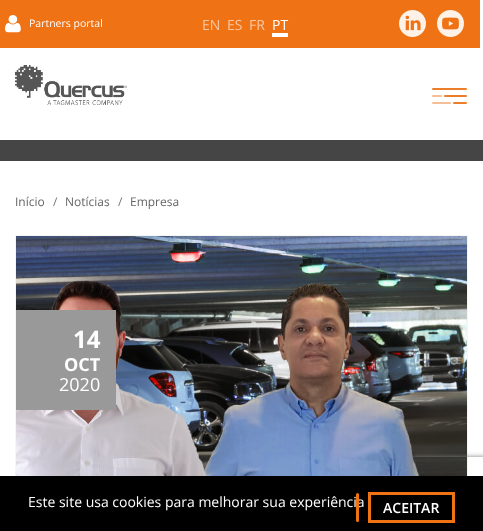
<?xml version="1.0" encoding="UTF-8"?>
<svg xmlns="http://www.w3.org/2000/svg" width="483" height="531">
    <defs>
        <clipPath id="clip1"><path d="M 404 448 H 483 V 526 H 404 Z M 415 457 H 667 C 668 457 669 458 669 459 V 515 C 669 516 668 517 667 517 H 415 C 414 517 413 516 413 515 V 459 C 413 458 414 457 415 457 Z" clip-rule="evenodd"/></clipPath>
        <filter id="blur1" x="-50%" y="-200%" width="200%" height="500%"><feGaussianBlur stdDeviation="2.5"/></filter>
    </defs>
    <rect width="100%" height="100%" fill="#FFFFFF"/>
    <rect x="0" y="0" width="480" height="48" fill="#EF7215"/>
    <image x="5" y="15" width="16" height="18" href="img_01.png"/>
    <text x="29" y="27" font-family="Open Sans" font-size="10.5" fill="#FFFFFF">Partners portal</text>
    <text x="202" y="30" font-family="Open Sans" font-size="14" fill="#F9C7A1">EN</text>
    <text x="227" y="30" font-family="Open Sans" font-size="14" fill="#F9C7A1">ES</text>
    <text x="249" y="30" font-family="Open Sans" font-size="14" fill="#F9C7A1">FR</text>
    <text x="272" y="30" font-family="Open Sans" font-size="14" fill="#FFFFFF">PT</text>
    <rect x="272" y="33" width="16" height="4" fill="#FFFFFF"/>
    <image x="399" y="10" width="27" height="27" href="img_02.png"/>
    <image x="437" y="10" width="27" height="27" href="img_03.png"/>
    <rect x="432" y="88" width="35" height="2" rx="1" fill="#EC7D2B"/>
    <rect x="432" y="95" width="10" height="2" rx="1" fill="#F6BE95"/>
    <rect x="444" y="95" width="23" height="2" rx="1" fill="#EC7D2B"/>
    <rect x="432" y="102" width="19" height="2" rx="1" fill="#F6BE95"/>
    <rect x="453" y="102" width="14" height="2" rx="1" fill="#EC7D2B"/>
    <image x="15" y="65" width="112" height="40" href="img_04.png"/>
    <rect x="0" y="140" width="483" height="21" fill="#454545"/>
    <text x="15" y="206" font-family="Open Sans" font-size="12" fill="#666666">Início</text>
    <text x="53" y="206" font-family="Open Sans" font-size="12" fill="#6C757D">/</text>
    <text x="65" y="206" font-family="Open Sans" font-size="12" fill="#666666">Notícias</text>
    <text x="118" y="206" font-family="Open Sans" font-size="12" fill="#6C757D">/</text>
    <text x="130" y="206" font-family="Open Sans" font-size="12" fill="#666666">Empresa</text>
    <image x="16" y="236" width="451" height="240" href="img_05.png"/>
    <rect x="15.5" y="235.5" width="452" height="273" fill="none" stroke="#F5F5F5"/>
    <rect x="16" y="310" width="100" height="100" fill="#999999"/>
    <text x="73" y="348" font-family="Open Sans" font-size="24" font-weight="700" fill="#FFFFFF">14</text>
    <text x="64" y="371" font-family="Open Sans" font-size="18" font-weight="700" fill="#FFFFFF">OCT</text>
    <text x="59" y="391" font-family="Open Sans" font-size="18" fill="#FFFFFF">2020</text>
    <g clip-path="url(#clip1)">
        <rect x="413" y="457" width="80" height="60" rx="2" fill="#808080" filter="url(#blur1)"/>
    </g>
    <rect x="0" y="476" width="483" height="55" fill="#000000"/>
    <text x="28" y="507" font-family="Open Sans" font-size="14" fill="#FFFFFF">Este site usa cookies para melhorar sua experiência</text>
    <rect x="369.5" y="493.5" width="84" height="28" fill="none" stroke="#EF7215" stroke-width="3"/>
    <rect x="356" y="493" width="3" height="29" rx="1.5" fill="#EF7215"/>
    <text x="383" y="513" font-family="Open Sans" font-size="14" font-weight="600" fill="#FFFFFF">ACEITAR</text>
</svg>
